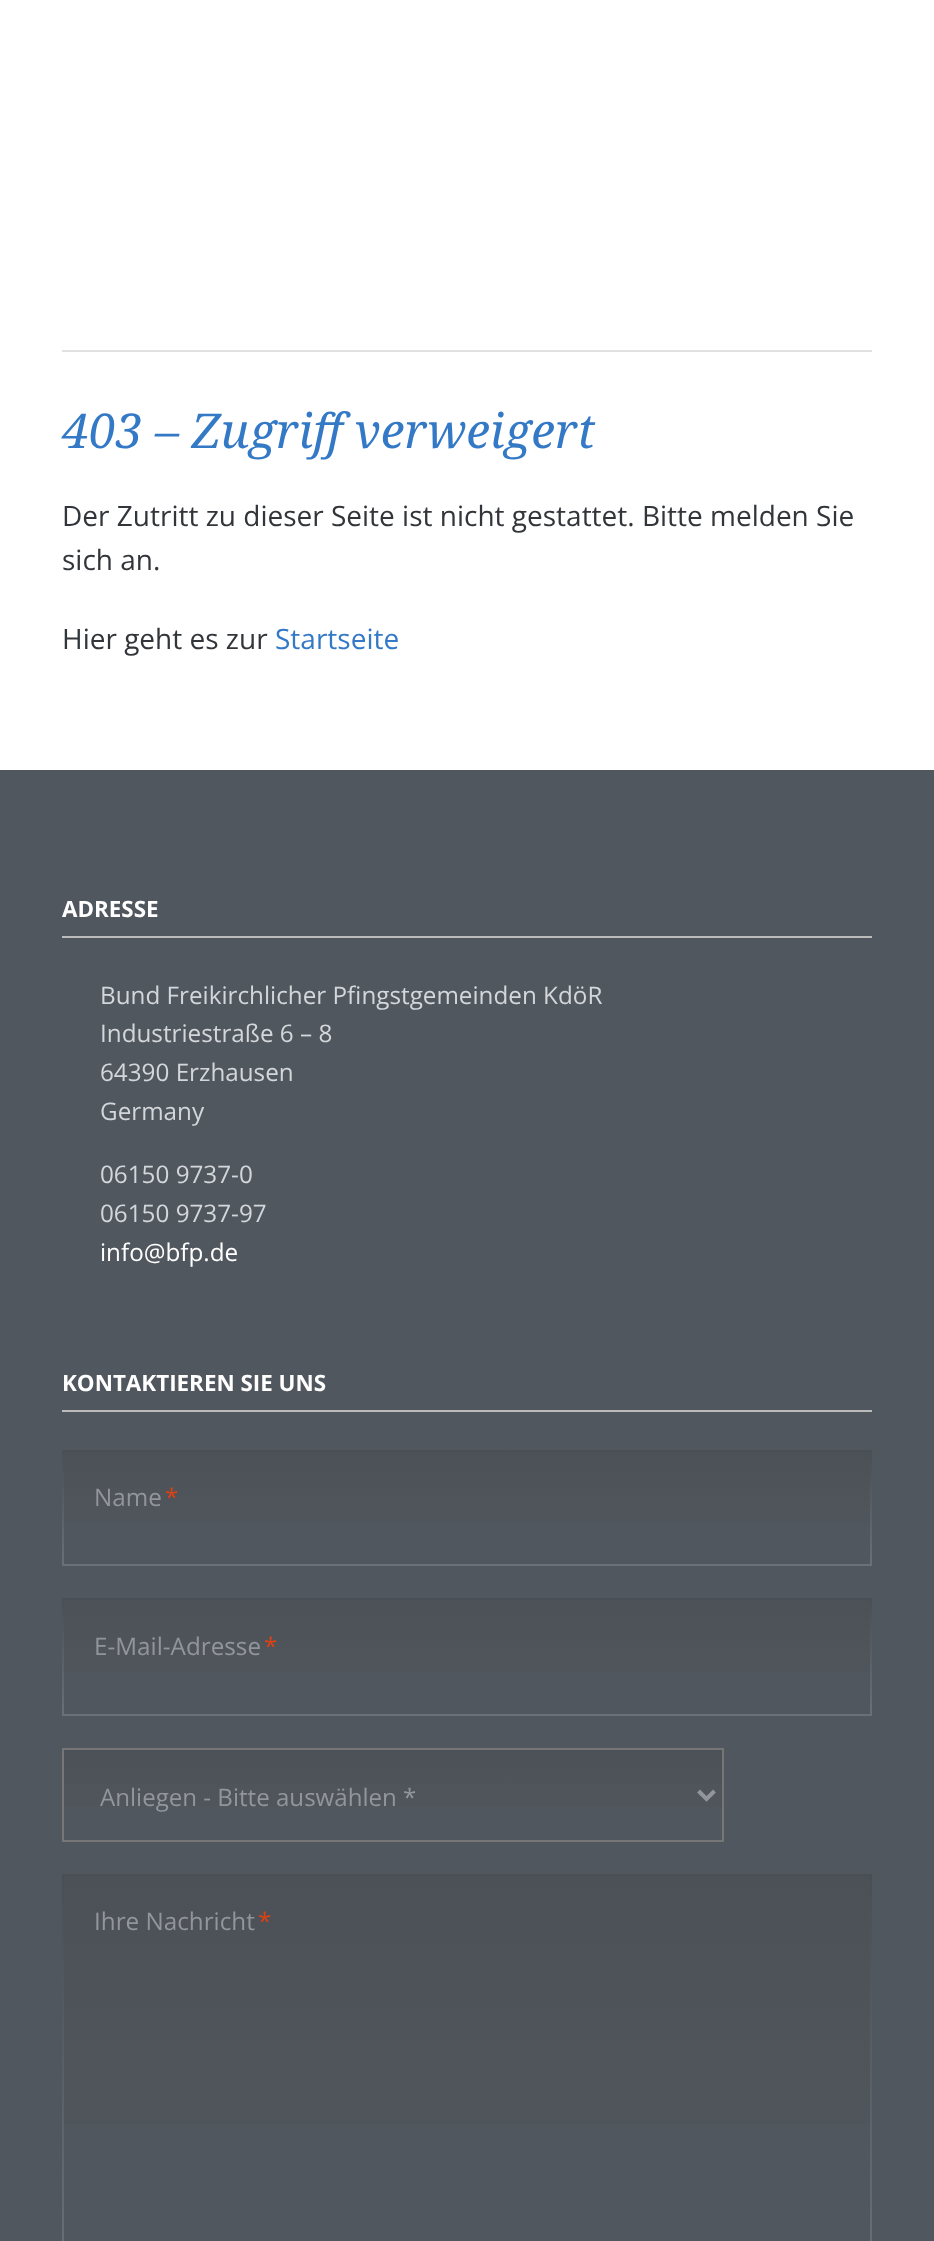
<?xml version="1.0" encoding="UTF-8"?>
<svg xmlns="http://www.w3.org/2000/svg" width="934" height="2241">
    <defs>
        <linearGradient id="g1" gradientUnits="userSpaceOnUse" x1="467" y1="1450" x2="467" y2="1566"><stop offset="0" stop-color="#4C5157"/><stop offset="0.5" stop-color="#4F555B"/><stop offset="1" stop-color="#50565D"/></linearGradient>
        <linearGradient id="g2" gradientUnits="userSpaceOnUse" x1="871" y1="1450" x2="871" y2="1566"><stop offset="0" stop-color="#4A4F56"/><stop offset="1" stop-color="#697079"/></linearGradient>
        <linearGradient id="g3" gradientUnits="userSpaceOnUse" x1="63" y1="1450" x2="63" y2="1566"><stop offset="0" stop-color="#4A4F56"/><stop offset="1" stop-color="#697079"/></linearGradient>
        <linearGradient id="g4" gradientUnits="userSpaceOnUse" x1="467" y1="1598" x2="467" y2="1716"><stop offset="0" stop-color="#4C5157"/><stop offset="0.5" stop-color="#4F555B"/><stop offset="1" stop-color="#50565D"/></linearGradient>
        <linearGradient id="g5" gradientUnits="userSpaceOnUse" x1="871" y1="1598" x2="871" y2="1716"><stop offset="0" stop-color="#4A4F56"/><stop offset="1" stop-color="#697079"/></linearGradient>
        <linearGradient id="g6" gradientUnits="userSpaceOnUse" x1="63" y1="1598" x2="63" y2="1716"><stop offset="0" stop-color="#4A4F56"/><stop offset="1" stop-color="#697079"/></linearGradient>
        <linearGradient id="g7" gradientUnits="userSpaceOnUse" x1="393" y1="1748" x2="393" y2="1842"><stop offset="0" stop-color="#4C5157"/><stop offset="0.5" stop-color="#4F555B"/><stop offset="1" stop-color="#50565D"/></linearGradient>
        <linearGradient id="g8" gradientUnits="userSpaceOnUse" x1="467" y1="1874" x2="467" y2="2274"><stop offset="0" stop-color="#4B5157"/><stop offset="0.5" stop-color="#4F555B"/><stop offset="1" stop-color="#50565D"/></linearGradient>
        <linearGradient id="g9" gradientUnits="userSpaceOnUse" x1="871" y1="1874" x2="871" y2="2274"><stop offset="0" stop-color="#4A4F56"/><stop offset="1" stop-color="#697079"/></linearGradient>
        <linearGradient id="g10" gradientUnits="userSpaceOnUse" x1="63" y1="1874" x2="63" y2="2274"><stop offset="0" stop-color="#4A4F56"/><stop offset="1" stop-color="#697079"/></linearGradient>
    </defs>
    <rect width="100%" height="100%" fill="#FFFFFF"/>
    <rect x="62" y="350" width="810" height="2" fill="#E1E1E1"/>
    <text x="62" y="448" font-family="Noto Serif" font-size="48" font-style="italic" fill="#3479C6">403 – Zugriff verweigert</text>
    <text font-family="Open Sans" font-size="28" fill="#323539">
        <tspan x="62" y="526">Der Zutritt zu dieser Seite ist nicht gestattet. Bitte melden Sie</tspan>
        <tspan x="62" y="570">sich an.</tspan>
    </text>
    <text x="62" y="649" font-family="Open Sans" font-size="28" fill="#323539">Hier geht es zur</text>
    <text x="275" y="649" font-family="Open Sans" font-size="28" fill="#3479C6">Startseite</text>
    <rect x="0" y="770" width="934" height="1471" fill="#51575E"/>
    <rect x="62" y="936" width="810" height="2" fill="#BBBBBB"/>
    <text x="62" y="917" font-family="Open Sans" font-size="22.4" font-weight="700" fill="#FFFFFF">ADRESSE</text>
    <text font-family="Open Sans" font-size="24.25" fill="#D3D6DA">
        <tspan x="100" y="1004">Bund Freikirchlicher Pfingstgemeinden KdöR</tspan>
        <tspan x="100" y="1042">Industriestraße 6 – 8</tspan>
        <tspan x="100" y="1081">64390 Erzhausen</tspan>
        <tspan x="100" y="1120">Germany</tspan>
    </text>
    <text font-family="Open Sans" font-size="24.25" fill="#D3D6DA">
        <tspan x="100" y="1183">06150 9737-0</tspan>
        <tspan x="100" y="1222">06150 9737-97</tspan>
    </text>
    <text x="100" y="1261" font-family="Open Sans" font-size="24.25" fill="#FFFFFF">info@bfp.de</text>
    <rect x="62" y="1410" width="810" height="2" fill="#BBBBBB"/>
    <text x="62" y="1391" font-family="Open Sans" font-size="22.4" font-weight="700" fill="#FFFFFF">KONTAKTIEREN SIE UNS</text>
    <rect x="64" y="1452" width="806" height="71" fill="url(#g1)"/>
    <rect x="870" y="1450" width="2" height="116" fill="url(#g2)"/>
    <rect x="62" y="1450" width="2" height="116" fill="url(#g3)"/>
    <path d="M 62 1450 H 872 L 870 1452 H 64 Z" fill="#4A4F56"/>
    <path d="M 872 1566 H 62 L 64 1564 H 870 Z" fill="#697079"/>
    <text x="94" y="1506" font-family="Open Sans" font-size="24.25" fill="#92969C">Name</text>
    <text x="165" y="1506" font-family="Open Sans" font-size="24.25" fill="#DF4111">*</text>
    <rect x="64" y="1600" width="806" height="72" fill="url(#g4)"/>
    <rect x="870" y="1598" width="2" height="118" fill="url(#g5)"/>
    <rect x="62" y="1598" width="2" height="118" fill="url(#g6)"/>
    <path d="M 62 1598 H 872 L 870 1600 H 64 Z" fill="#4A4F56"/>
    <path d="M 872 1716 H 62 L 64 1714 H 870 Z" fill="#697079"/>
    <text x="94" y="1655" font-family="Open Sans" font-size="24.25" fill="#92969C">E-Mail-Adresse</text>
    <text x="264" y="1655" font-family="Open Sans" font-size="24.25" fill="#DF4111">*</text>
    <rect x="64" y="1750" width="658" height="57" fill="url(#g7)"/>
    <rect x="63" y="1749" width="660" height="92" fill="none" stroke="#767676" stroke-width="2"/>
    <path d="M 698.5 1791 L 706.5 1799 L 714.5 1791" fill="none" stroke="#92969C" stroke-width="4"/>
    <text x="100" y="1806" font-family="Open Sans" font-size="24.1" fill="#92969C">Anliegen - Bitte auswählen *</text>
    <rect x="64" y="1876" width="806" height="248" fill="url(#g8)"/>
    <rect x="870" y="1874" width="2" height="367" fill="url(#g9)"/>
    <rect x="62" y="1874" width="2" height="367" fill="url(#g10)"/>
    <path d="M 62 1874 H 872 L 870 1876 H 64 Z" fill="#4A4F56"/>
    <text x="94" y="1930" font-family="Open Sans" font-size="24.25" fill="#92969C">Ihre Nachricht</text>
    <text x="258" y="1930" font-family="Open Sans" font-size="24.25" fill="#DF4111">*</text>
</svg>
